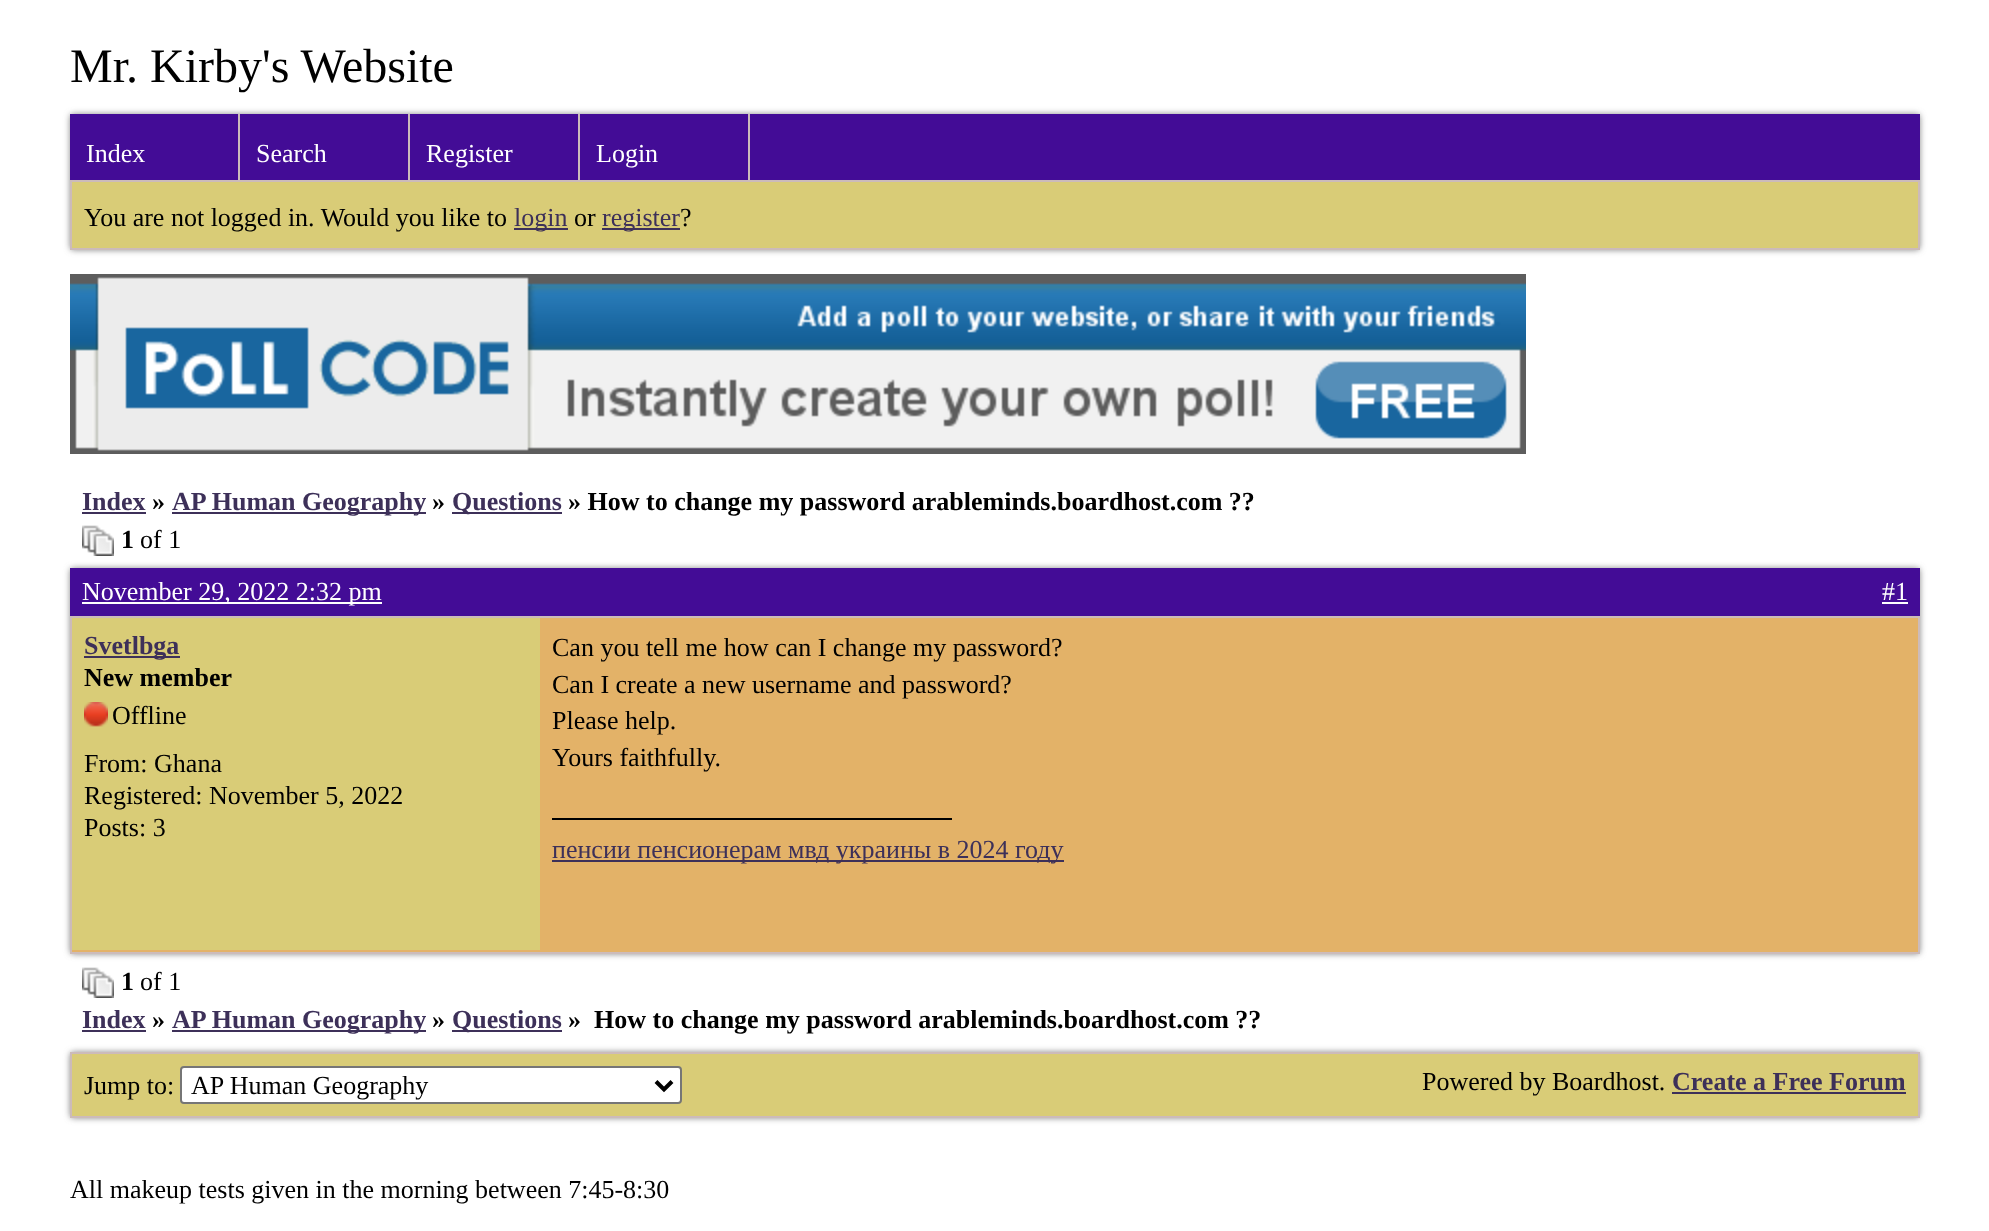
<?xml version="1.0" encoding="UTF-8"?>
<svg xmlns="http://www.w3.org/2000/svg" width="1989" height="1231">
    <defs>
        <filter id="blur1" x="-50%" y="-200%" width="200%" height="500%"><feGaussianBlur stdDeviation="3"/></filter>
    </defs>
    <rect width="100%" height="100%" fill="#FFFFFF"/>
    <text x="70" y="82" font-family="Liberation Serif" font-size="48" fill="#000000">Mr. Kirby's Website</text>
    <rect x="70" y="114" width="1850" height="136" rx="4" fill="#888888" filter="url(#blur1)"/>
    <rect x="72" y="182" width="1846" height="66" fill="#D9CC77"/>
    <rect x="71" y="115" width="1848" height="134" fill="none" stroke="#CCBBBA" stroke-width="2"/>
    <rect x="70" y="114" width="1850" height="66" fill="#430C96"/>
    <rect x="70" y="180" width="1850" height="2" fill="#CCBBBA"/>
    <rect x="238" y="114" width="2" height="66" fill="#CCBBBA"/>
    <text x="86" y="162" font-family="Liberation Serif" font-size="26" fill="#FFFFFF">Index</text>
    <rect x="408" y="114" width="2" height="66" fill="#CCBBBA"/>
    <text x="256" y="162" font-family="Liberation Serif" font-size="26" fill="#FFFFFF">Search</text>
    <rect x="578" y="114" width="2" height="66" fill="#CCBBBA"/>
    <text x="426" y="162" font-family="Liberation Serif" font-size="26" fill="#FFFFFF">Register</text>
    <rect x="748" y="114" width="2" height="66" fill="#CCBBBA"/>
    <text x="596" y="162" font-family="Liberation Serif" font-size="26" fill="#FFFFFF">Login</text>
    <text x="84" y="226" font-family="Liberation Serif" font-size="26" fill="#000000">You are not logged in. Would you like to</text>
    <rect x="514" y="228" width="54" height="2" fill="#3D3059"/>
    <text x="514" y="226" font-family="Liberation Serif" font-size="26" fill="#3D3059">login</text>
    <text x="574" y="226" font-family="Liberation Serif" font-size="26" fill="#000000">or</text>
    <rect x="602" y="228" width="78" height="2" fill="#3D3059"/>
    <text x="602" y="226" font-family="Liberation Serif" font-size="26" fill="#3D3059">register</text>
    <text x="680" y="226" font-family="Liberation Serif" font-size="26" fill="#000000">?</text>
    <image x="70" y="274" width="1456" height="180" href="img_01.png"/>
    <text x="82" y="510" font-family="Liberation Serif" font-size="26" font-weight="700" fill="#3D3059">Index</text>
    <rect x="82" y="512" width="64" height="2" fill="#3D3059"/>
    <text x="152" y="510" font-family="Liberation Serif" font-size="26" font-weight="700" fill="#000000">»</text>
    <rect x="172" y="512" width="254" height="2" fill="#3D3059"/>
    <text x="172" y="510" font-family="Liberation Serif" font-size="26" font-weight="700" fill="#3D3059">AP Human Geography</text>
    <text x="432" y="510" font-family="Liberation Serif" font-size="26" font-weight="700" fill="#000000">»</text>
    <rect x="452" y="512" width="110" height="2" fill="#3D3059"/>
    <text x="452" y="510" font-family="Liberation Serif" font-size="26" font-weight="700" fill="#3D3059">Questions</text>
    <text x="568" y="510" font-family="Liberation Serif" font-size="26" font-weight="700" fill="#000000">» How to change my password arableminds.boardhost.com ??</text>
    <image x="82" y="525" width="32" height="31" href="img_02.png"/>
    <text x="121" y="548" font-family="Liberation Serif" font-size="26" font-weight="700" fill="#000000">1</text>
    <text x="140" y="548" font-family="Liberation Serif" font-size="26" fill="#000000">of 1</text>
    <rect x="70" y="568" width="1850" height="386" rx="4" fill="#888888" filter="url(#blur1)"/>
    <rect x="70" y="568" width="1850" height="48" fill="#430C96"/>
    <rect x="82" y="602" width="300" height="2" fill="#FFFFFF"/>
    <text x="82" y="600" font-family="Liberation Serif" font-size="26" fill="#FFFFFF">November 29, 2022 2:32 pm</text>
    <text x="1882" y="600" font-family="Liberation Serif" font-size="26" fill="#FFFFFF">#1</text>
    <rect x="1882" y="602" width="26" height="2" fill="#FFFFFF"/>
    <rect x="71" y="617" width="1848" height="336" fill="#E3B268" stroke="#CCBBBA" stroke-width="2"/>
    <rect x="72" y="618" width="468" height="332" fill="#D9CC77"/>
    <rect x="84" y="656" width="96" height="2" fill="#3D3059"/>
    <text x="84" y="654" font-family="Liberation Serif" font-size="26" font-weight="700" fill="#3D3059">Svetlbga</text>
    <text x="84" y="686" font-family="Liberation Serif" font-size="26" font-weight="700" fill="#000000">New member</text>
    <image x="84" y="702" width="24" height="25" href="img_03.png"/>
    <text x="112" y="724" font-family="Liberation Serif" font-size="26" fill="#000000">Offline</text>
    <text font-family="Liberation Serif" font-size="26" fill="#000000">
        <tspan x="84" y="772">From: Ghana</tspan>
        <tspan x="84" y="804">Registered: November 5, 2022</tspan>
        <tspan x="84" y="836">Posts: 3</tspan>
    </text>
    <text font-family="Liberation Serif" font-size="26" fill="#000000">
        <tspan x="552" y="656">Can you tell me how can I change my password?</tspan>
        <tspan x="552" y="693">Can I create a new username and password?</tspan>
        <tspan x="552" y="729">Please help.</tspan>
        <tspan x="552" y="766">Yours faithfully.</tspan>
    </text>
    <rect x="552" y="818" width="400" height="2" fill="#000000"/>
    <rect x="552" y="860" width="512" height="2" fill="#3D3059"/>
    <text x="552" y="858" font-family="Liberation Serif" font-size="26" fill="#3D3059">пенсии пенсионерам мвд украины в 2024 году</text>
    <image x="82" y="967" width="32" height="31" href="img_02.png"/>
    <text x="121" y="990" font-family="Liberation Serif" font-size="26" font-weight="700" fill="#000000">1</text>
    <text x="140" y="990" font-family="Liberation Serif" font-size="26" fill="#000000">of 1</text>
    <text x="82" y="1028" font-family="Liberation Serif" font-size="26" font-weight="700" fill="#3D3059">Index</text>
    <rect x="82" y="1030" width="64" height="2" fill="#3D3059"/>
    <text x="152" y="1028" font-family="Liberation Serif" font-size="26" font-weight="700" fill="#000000">»</text>
    <rect x="172" y="1030" width="254" height="2" fill="#3D3059"/>
    <text x="172" y="1028" font-family="Liberation Serif" font-size="26" font-weight="700" fill="#3D3059">AP Human Geography</text>
    <text x="432" y="1028" font-family="Liberation Serif" font-size="26" font-weight="700" fill="#000000">»</text>
    <rect x="452" y="1030" width="110" height="2" fill="#3D3059"/>
    <text x="452" y="1028" font-family="Liberation Serif" font-size="26" font-weight="700" fill="#3D3059">Questions</text>
    <text x="568" y="1028" font-family="Liberation Serif" font-size="26" font-weight="700" fill="#000000">»</text>
    <text x="594" y="1028" font-family="Liberation Serif" font-size="26" font-weight="700" fill="#000000">How to change my password arableminds.boardhost.com ??</text>
    <rect x="70" y="1052" width="1850" height="66" rx="4" fill="#888888" filter="url(#blur1)"/>
    <rect x="71" y="1053" width="1848" height="64" fill="#D9CC77" stroke="#CCBBBA" stroke-width="2"/>
    <text x="84" y="1094" font-family="Liberation Serif" font-size="26" fill="#000000">Jump to:</text>
    <rect x="181" y="1067" width="500" height="36" rx="3" fill="#FFFFFF" stroke="#767676" stroke-width="2"/>
    <path d="M 656 1081.5 L 664 1089.5 L 672 1081.5" fill="none" stroke="#000000" stroke-width="4"/>
    <text x="191" y="1094" font-family="Liberation Serif" font-size="26" fill="#000000">AP Human Geography</text>
    <text x="1422" y="1090" font-family="Liberation Serif" font-size="26" fill="#000000">Powered by Boardhost.</text>
    <text x="1672" y="1090" font-family="Liberation Serif" font-size="26" font-weight="700" fill="#3D3059">Create a Free Forum</text>
    <rect x="1672" y="1092" width="234" height="2" fill="#3D3059"/>
    <text x="70" y="1198" font-family="Liberation Serif" font-size="26" fill="#000000">All makeup tests given in the morning between 7:45-8:30</text>
</svg>
